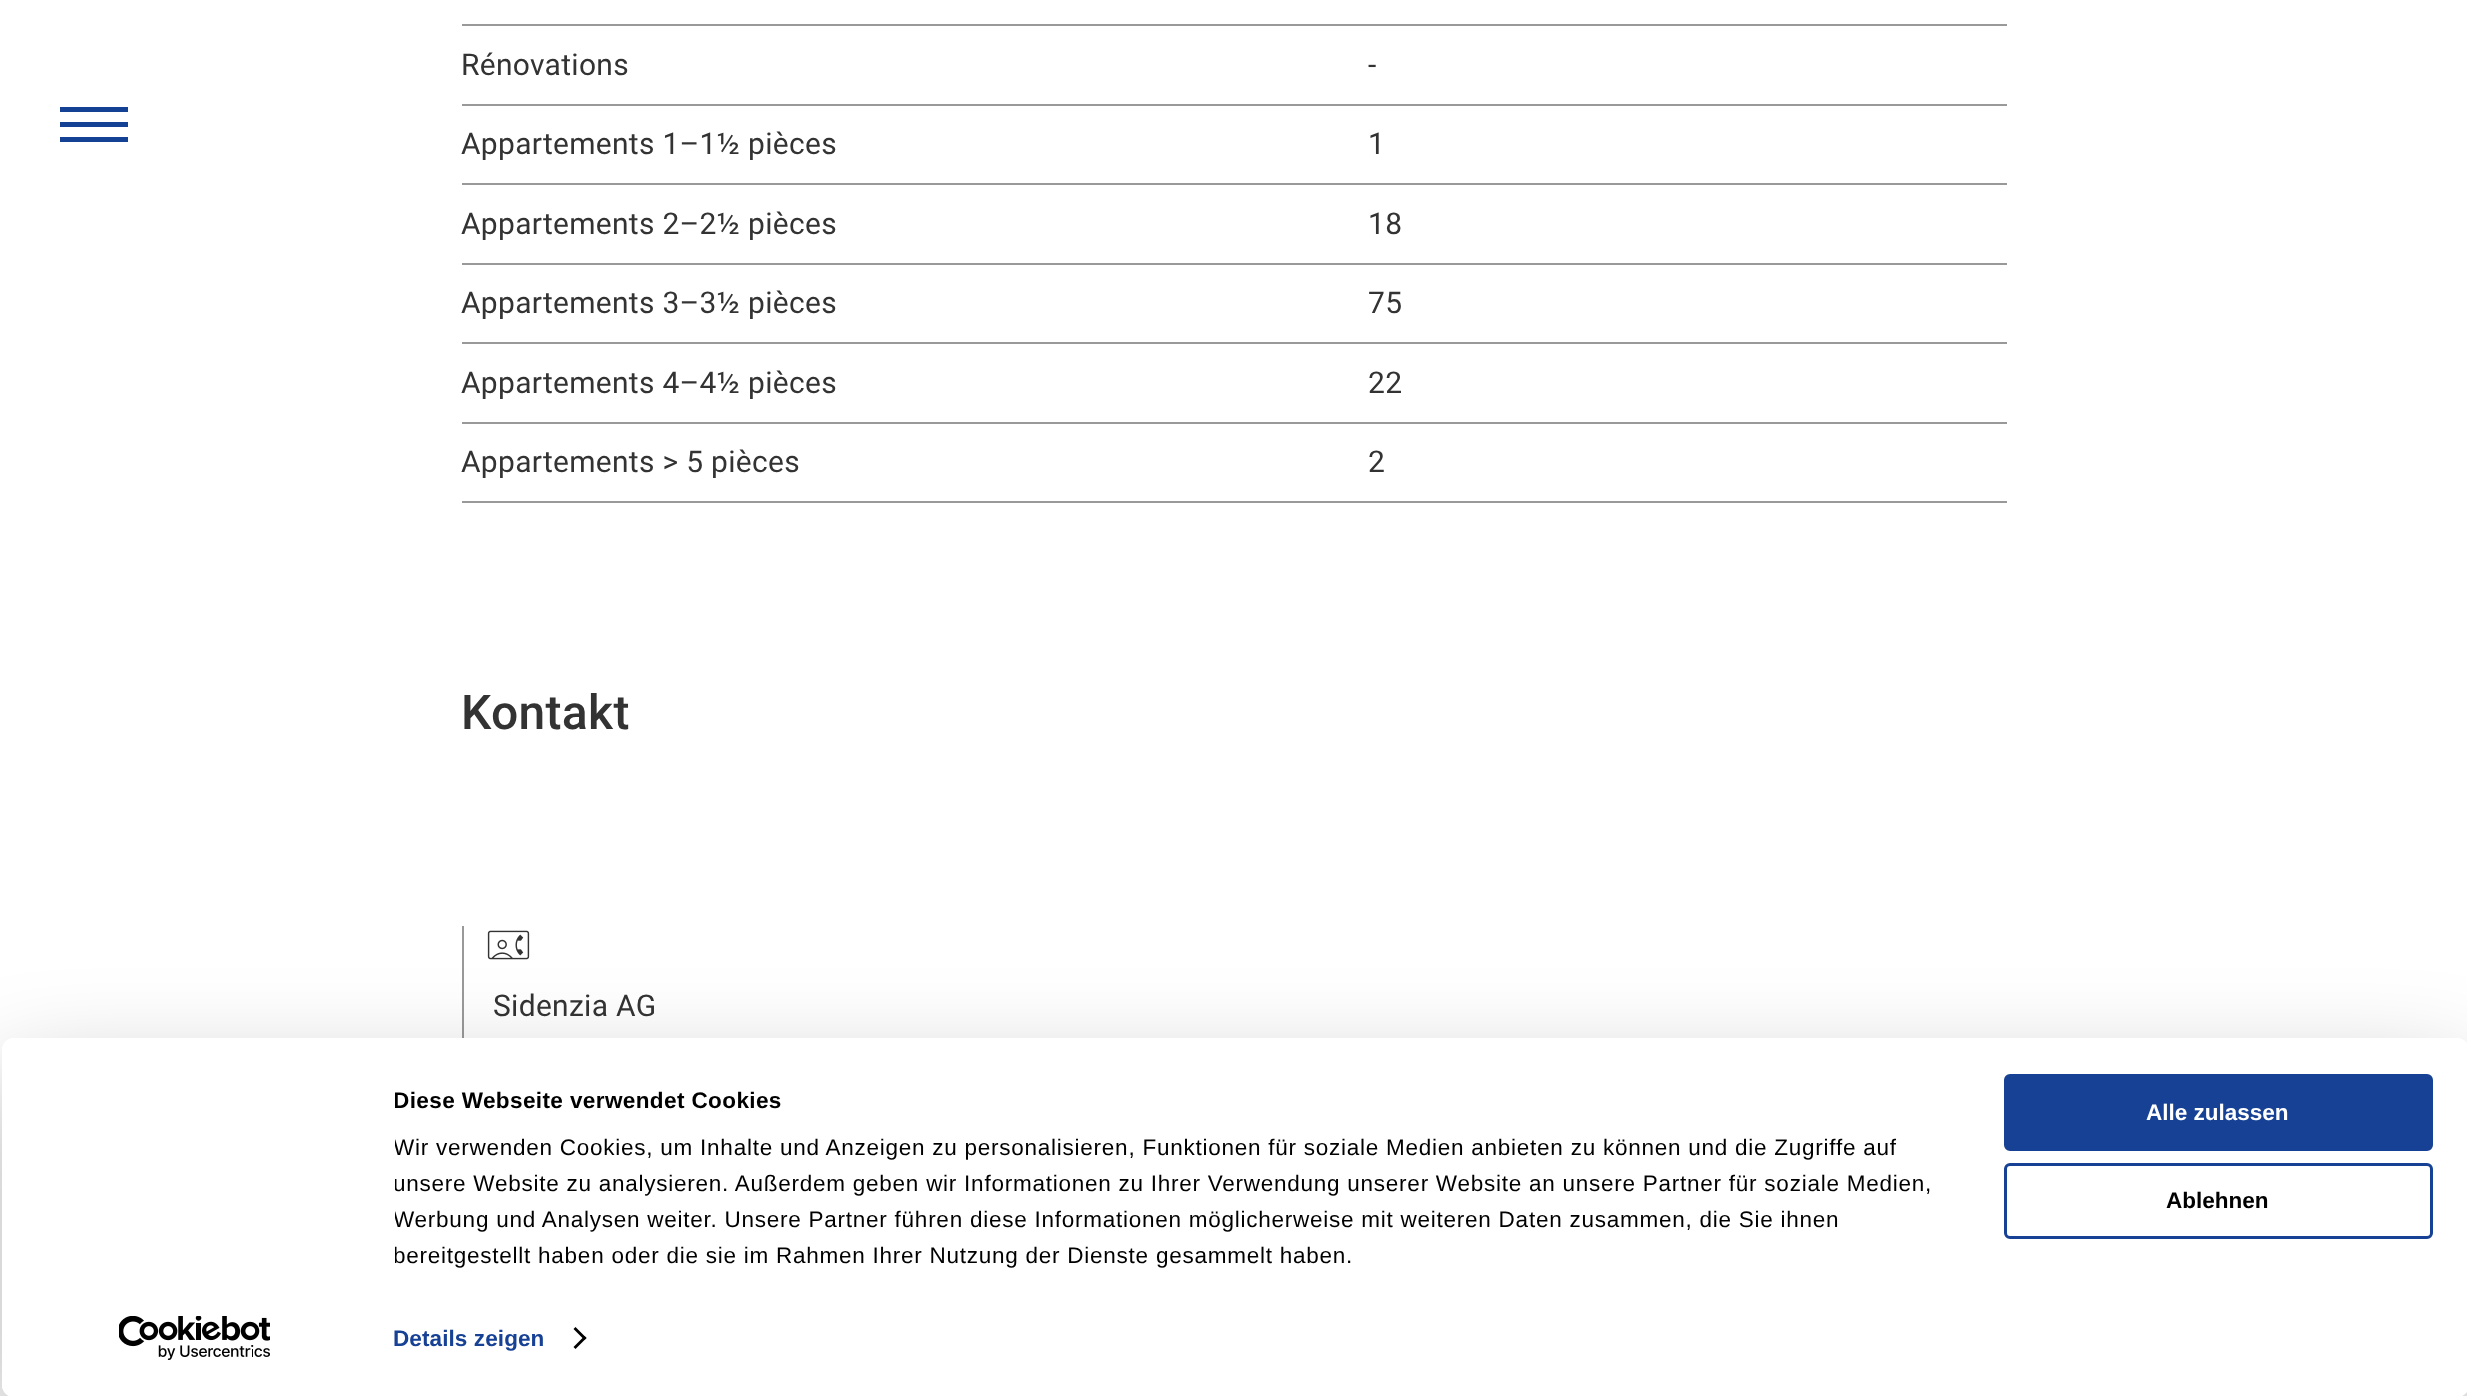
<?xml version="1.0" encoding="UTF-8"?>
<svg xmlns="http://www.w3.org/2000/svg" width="2467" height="1396">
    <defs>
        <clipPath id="clip1"><path d="M 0 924 H 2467 V 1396 H 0 Z M 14 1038 H 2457 C 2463.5 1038 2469 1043.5 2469 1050 V 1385 C 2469 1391.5 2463.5 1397 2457 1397 H 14 C 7.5 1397 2 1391.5 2 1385 V 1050 C 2 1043.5 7.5 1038 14 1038 Z" clip-rule="evenodd"/></clipPath>
        <filter id="blur1" x="-50%" y="-200%" width="200%" height="500%"><feGaussianBlur stdDeviation="52.5"/></filter>
        <clipPath id="clip2"><rect x="395" y="1083" width="1566" height="191"/></clipPath>
    </defs>
    <rect width="100%" height="100%" fill="#FFFFFF"/>
    <rect x="60" y="122" width="68" height="5" fill="#154194"/>
    <rect x="60" y="107" width="68" height="5" fill="#154194"/>
    <rect x="60" y="137" width="68" height="5" fill="#154194"/>
    <rect x="462" y="24" width="1545" height="2" fill="#999999"/>
    <text x="461" y="75" font-family="Roboto" font-size="30" letter-spacing="0.3" fill="#333333">Rénovations</text>
    <text x="1368" y="75" font-family="Roboto" font-size="30" letter-spacing="0.3" fill="#333333">-</text>
    <rect x="462" y="104" width="1545" height="2" fill="#999999"/>
    <text x="461" y="154" font-family="Roboto" font-size="30" letter-spacing="0.3" fill="#333333">Appartements 1–1½ pièces</text>
    <text x="1368" y="154" font-family="Roboto" font-size="30" letter-spacing="0.3" fill="#333333">1</text>
    <rect x="462" y="183" width="1545" height="2" fill="#999999"/>
    <text x="461" y="234" font-family="Roboto" font-size="30" letter-spacing="0.3" fill="#333333">Appartements 2–2½ pièces</text>
    <text x="1368" y="234" font-family="Roboto" font-size="30" letter-spacing="0.3" fill="#333333">18</text>
    <rect x="462" y="263" width="1545" height="2" fill="#999999"/>
    <text x="461" y="313" font-family="Roboto" font-size="30" letter-spacing="0.3" fill="#333333">Appartements 3–3½ pièces</text>
    <text x="1368" y="313" font-family="Roboto" font-size="30" letter-spacing="0.3" fill="#333333">75</text>
    <rect x="462" y="342" width="1545" height="2" fill="#999999"/>
    <text x="461" y="393" font-family="Roboto" font-size="30" letter-spacing="0.3" fill="#333333">Appartements 4–4½ pièces</text>
    <text x="1368" y="393" font-family="Roboto" font-size="30" letter-spacing="0.3" fill="#333333">22</text>
    <rect x="462" y="422" width="1545" height="2" fill="#999999"/>
    <rect x="462" y="501" width="1545" height="2" fill="#999999"/>
    <text x="461" y="472" font-family="Roboto" font-size="30" letter-spacing="0.3" fill="#333333">Appartements &gt; 5 pièces</text>
    <text x="1368" y="472" font-family="Roboto" font-size="30" letter-spacing="0.3" fill="#333333">2</text>
    <text x="461" y="729" font-family="Roboto" font-size="48" font-weight="500" letter-spacing="0.3" fill="#333333">Kontakt</text>
    <rect x="462" y="926" width="2" height="112" fill="#999999"/>
    <image x="487" y="930" width="43" height="30" href="img_01.png"/>
    <text x="493" y="1016" font-family="Roboto" font-size="30" letter-spacing="0.3" fill="#333333">Sidenzia AG</text>
    <g clip-path="url(#clip1)">
        <rect x="2" y="1083" width="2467" height="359" rx="12" fill="#000000" fill-opacity="0.3" filter="url(#blur1)"/>
    </g>
    <rect x="2" y="1038" width="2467" height="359" rx="12" fill="#FFFFFF"/>
    <g clip-path="url(#clip2)">
        <text x="393" y="1108" font-family="Liberation Sans" font-size="22.5" font-weight="700" letter-spacing="0.4" fill="#000000">Diese Webseite verwendet Cookies</text>
        <text font-family="Liberation Sans" font-size="22.5" letter-spacing="0.75" fill="#000000">
            <tspan x="393" y="1155">Wir verwenden Cookies, um Inhalte und Anzeigen zu personalisieren, Funktionen für soziale Medien anbieten zu können und die Zugriffe auf</tspan>
            <tspan x="393" y="1191">unsere Website zu analysieren. Außerdem geben wir Informationen zu Ihrer Verwendung unserer Website an unsere Partner für soziale Medien,</tspan>
            <tspan x="393" y="1227">Werbung und Analysen weiter. Unsere Partner führen diese Informationen möglicherweise mit weiteren Daten zusammen, die Sie ihnen</tspan>
            <tspan x="393" y="1263">bereitgestellt haben oder die sie im Rahmen Ihrer Nutzung der Dienste gesammelt haben.</tspan>
        </text>
    </g>
    <text x="393" y="1346" font-family="Liberation Sans" font-size="22.5" font-weight="700" letter-spacing="0.1" fill="#164194">Details zeigen</text>
    <path d="M 575.5 1327 L 586.5 1338 L 584.5 1340 L 573.5 1329 Z" fill="#000000"/>
    <path d="M 584.5 1336 L 586.5 1338 L 575.5 1349 L 573.5 1347 Z" fill="#000000"/>
    <rect x="2005.5" y="1075.5" width="426" height="74" rx="4.5" fill="#164194" stroke="#164194" stroke-width="3"/>
    <text x="2146" y="1120" font-family="Liberation Sans" font-size="22.5" font-weight="700" fill="#FFFFFF">Alle zulassen</text>
    <rect x="2005.5" y="1164.5" width="426" height="73" rx="4.5" fill="none" stroke="#164194" stroke-width="3"/>
    <text x="2166" y="1208" font-family="Liberation Sans" font-size="22.5" font-weight="700" fill="#000000">Ablehnen</text>
    <image x="119" y="1316" width="151" height="44" href="img_02.png"/>
</svg>
